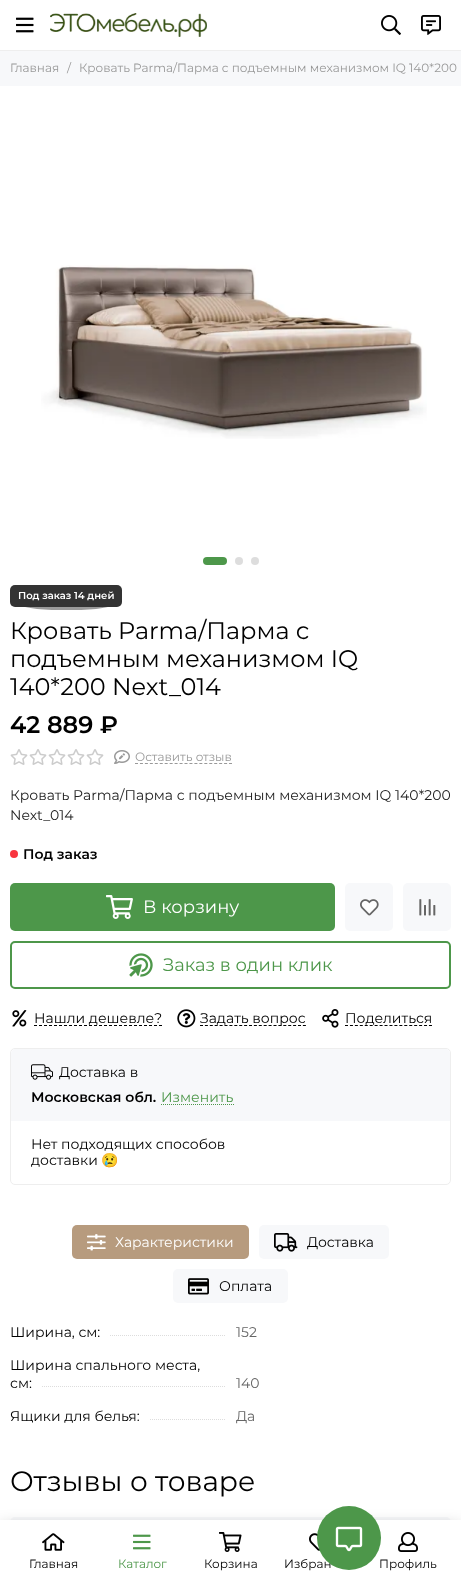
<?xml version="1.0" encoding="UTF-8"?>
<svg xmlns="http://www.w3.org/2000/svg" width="461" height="1580">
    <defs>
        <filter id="blur1" x="-50%" y="-200%" width="200%" height="500%"><feGaussianBlur stdDeviation="7.5"/></filter>
    </defs>
    <rect width="100%" height="100%" fill="#FFFFFF"/>
    <rect x="0" y="50" width="461" height="1" fill="#EEEEEE"/>
    <image x="16" y="17" width="18" height="16" href="img_01.png"/>
    <image x="50" y="13" width="157" height="24" href="img_02.png"/>
    <image x="381" y="15" width="20" height="20" href="img_03.png"/>
    <image x="421" y="15" width="20" height="20" href="img_04.png"/>
    <rect x="0" y="51" width="461" height="35" fill="#F7F8FA"/>
    <text x="10" y="72" font-family="Montserrat" font-size="12" fill="#999999">Главная</text>
    <text x="67" y="72" font-family="Montserrat" font-size="12" fill="#999999">/</text>
    <text x="79" y="72" font-family="Montserrat" font-size="12" fill="#999999">Кровать Parma/Парма с подъемным механизмом IQ 140*200</text>
    <image x="41" y="265" width="386" height="174" href="img_05.png"/>
    <rect x="203" y="557" width="24" height="8" rx="4" fill="#4D974A"/>
    <circle cx="239" cy="561" r="4" fill="#DDDDDD"/>
    <circle cx="255" cy="561" r="4" fill="#DDDDDD"/>
    <rect x="10" y="585" width="112" height="22" rx="5" fill="#333333"/>
    <path d="M 56 590 H 77 C 99 590 117 594 117 598 V 602 C 117 606 99 610 77 610 H 56 C 34 610 16 606 16 602 V 598 C 16 594 34 590 56 590 Z" fill="#333333" fill-opacity="0.5"/>
    <text x="18" y="599" font-family="Montserrat" font-size="10" font-weight="600" fill="#FFFFFF">Под заказ 14 дней</text>
    <text font-family="Montserrat" font-size="24" fill="#000000">
        <tspan x="10" y="639">Кровать Parma/Парма с</tspan>
        <tspan x="10" y="667">подъемным механизмом IQ</tspan>
        <tspan x="10" y="695">140*200 Next_014</tspan>
    </text>
    <text x="10" y="733" font-family="Montserrat" font-size="24" font-weight="600" fill="#000000">42 889 ₽</text>
    <image x="10" y="749" width="18" height="16" href="img_06.png"/>
    <image x="29" y="749" width="18" height="16" href="img_06.png"/>
    <image x="48" y="749" width="18" height="16" href="img_06.png"/>
    <image x="67" y="749" width="18" height="16" href="img_06.png"/>
    <image x="86" y="749" width="18" height="16" href="img_06.png"/>
    <image x="114" y="750" width="16" height="14" href="img_07.png"/>
    <path d="M 135 763.5 H 232" fill="none" stroke="#999999" stroke-dasharray="3 1.95"/>
    <text x="135" y="761" font-family="Montserrat" font-size="12" fill="#999999">Оставить отзыв</text>
    <text font-family="Montserrat" font-size="14" fill="#222222">
        <tspan x="10" y="800">Кровать Parma/Парма с подъемным механизмом IQ 140*200</tspan>
        <tspan x="10" y="820">Next_014</tspan>
    </text>
    <circle cx="14" cy="854" r="4" fill="#F8353E"/>
    <text x="23" y="859" font-family="Montserrat" font-size="14" font-weight="600" fill="#000000">Под заказ</text>
    <rect x="10" y="883" width="325" height="48" rx="5" fill="#4D974A"/>
    <image x="106" y="895" width="27" height="24" href="img_08.png"/>
    <text x="143" y="913" font-family="Montserrat" font-size="18" fill="#FFFFFF">В корзину</text>
    <rect x="345" y="883" width="48" height="48" rx="5" fill="#F7F8FA"/>
    <image x="360" y="899" width="19" height="17" href="img_09.png"/>
    <rect x="403" y="883" width="48" height="48" rx="5" fill="#F7F8FA"/>
    <image x="419" y="899" width="17" height="17" href="img_10.png"/>
    <rect x="11" y="942" width="439" height="46" rx="4" fill="none" stroke="#4D974A" stroke-width="2"/>
    <image x="129" y="953" width="24" height="24" href="img_11.png"/>
    <text x="163" y="971" font-family="Montserrat" font-size="18" fill="#4D974A">Заказ в один клик</text>
    <image x="12" y="1010" width="15" height="17" href="img_12.png"/>
    <path d="M 34 1025.5 H 162" fill="none" stroke="#000000" stroke-dasharray="3 2"/>
    <text x="34" y="1023" font-family="Montserrat" font-size="14" fill="#000000">Нашли дешевле?</text>
    <image x="177" y="1009" width="19" height="19" href="img_13.png"/>
    <path d="M 200 1025.5 H 306" fill="none" stroke="#000000" stroke-dasharray="3 1.9"/>
    <text x="200" y="1023" font-family="Montserrat" font-size="14" fill="#000000">Задать вопрос</text>
    <image x="322" y="1009" width="17" height="19" href="img_14.png"/>
    <path d="M 345 1025.5 H 432" fill="none" stroke="#000000" stroke-dasharray="3 1.94"/>
    <text x="345" y="1023" font-family="Montserrat" font-size="14" fill="#000000">Поделиться</text>
    <rect x="10.5" y="1048.5" width="440" height="136" rx="4.5" fill="none" stroke="#EEEEEE"/>
    <path d="M 16 1049 H 445 C 448 1049 450 1051 450 1054 V 1121 H 11 V 1054 C 11 1051 13 1049 16 1049 Z" fill="#F7F8FA"/>
    <image x="31" y="1064" width="22" height="16" href="img_15.png"/>
    <text x="59" y="1077" font-family="Montserrat" font-size="14" fill="#000000">Доставка в</text>
    <text x="31" y="1102" font-family="Montserrat" font-size="14" font-weight="600" fill="#000000">Московская обл.</text>
    <path d="M 161 1104.5 H 234" fill="none" stroke="#4D974A" stroke-dasharray="1 1"/>
    <text x="161" y="1102" font-family="Montserrat" font-size="14" fill="#4D974A">Изменить</text>
    <text font-family="Montserrat" font-size="14" fill="#000000">
        <tspan x="31" y="1149">Нет подходящих способов</tspan>
        <tspan x="31" y="1165">доставки</tspan>
    </text>
    <text x="101" y="1165" font-family="Noto Color Emoji" font-size="14" fill="#000000">😢</text>
    <rect x="72" y="1225" width="177" height="34" rx="5" fill="#B79B7E"/>
    <image x="87" y="1234" width="19" height="17" href="img_16.png"/>
    <text x="115" y="1247" font-family="Montserrat" font-size="14" fill="#FFFFFF">Характеристики</text>
    <rect x="259" y="1225" width="130" height="34" rx="5" fill="#F7F8FA"/>
    <image x="274" y="1233" width="24" height="19" href="img_17.png"/>
    <text x="307" y="1247" font-family="Montserrat" font-size="14" fill="#000000">Доставка</text>
    <rect x="173" y="1269" width="115" height="34" rx="5" fill="#F7F8FA"/>
    <image x="188" y="1278" width="21" height="17" href="img_18.png"/>
    <text x="219" y="1291" font-family="Montserrat" font-size="14" fill="#000000">Оплата</text>
    <path d="M 10 1335.5 H 226" fill="none" stroke="#DDDDDD" stroke-dasharray="1 1"/>
    <rect x="10" y="1335" width="99" height="1" fill="#FFFFFF"/>
    <text x="10" y="1337" font-family="Montserrat" font-size="14" fill="#000000">Ширина, см:</text>
    <text x="236" y="1337" font-family="Montserrat" font-size="14" fill="#666666">152</text>
    <text x="10" y="1370" font-family="Montserrat" font-size="14" fill="#000000">Ширина спального места,</text>
    <path d="M 10 1386.5 H 226" fill="none" stroke="#DDDDDD" stroke-dasharray="1 1"/>
    <rect x="10" y="1386" width="31" height="1" fill="#FFFFFF"/>
    <text x="10" y="1388" font-family="Montserrat" font-size="14" fill="#000000">см:</text>
    <text x="236" y="1388" font-family="Montserrat" font-size="14" fill="#666666">140</text>
    <path d="M 10 1419.5 H 226" fill="none" stroke="#DDDDDD" stroke-dasharray="1 1"/>
    <rect x="10" y="1419" width="139" height="1" fill="#FFFFFF"/>
    <text x="10" y="1421" font-family="Montserrat" font-size="14" fill="#000000">Ящики для белья:</text>
    <text x="236" y="1421" font-family="Montserrat" font-size="14" fill="#666666">Да</text>
    <text x="10" y="1491" font-family="Montserrat" font-size="28" fill="#000000">Отзывы о товаре</text>
    <rect x="10" y="1517" width="441" height="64" rx="5" fill="#F7F8FA"/>
    <rect x="0" y="1525" width="461" height="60" fill="#000000" fill-opacity="0.2" filter="url(#blur1)"/>
    <rect x="0" y="1520" width="461" height="60" fill="#FFFFFF"/>
    <image x="42" y="1533" width="23" height="18" href="img_19.png"/>
    <text x="29" y="1568" font-family="Montserrat" font-size="12" fill="#000000">Главная</text>
    <image x="133" y="1534" width="18" height="16" href="img_20.png"/>
    <text x="118" y="1568" font-family="Montserrat" font-size="12" fill="#4D974A">Каталог</text>
    <image x="219" y="1532" width="23" height="20" href="img_21.png"/>
    <text x="204" y="1568" font-family="Montserrat" font-size="12" fill="#000000">Корзина</text>
    <image x="309" y="1533" width="11" height="18" href="img_22.png"/>
    <text x="284" y="1568" font-family="Montserrat" font-size="12" fill="#000000">Избран</text>
    <image x="398" y="1532" width="20" height="20" href="img_23.png"/>
    <text x="379" y="1568" font-family="Montserrat" font-size="12" fill="#000000">Профиль</text>
    <circle cx="349" cy="1538" r="32" fill="#4D974A"/>
    <image x="335" y="1526" width="28" height="26" href="img_24.png"/>
</svg>
